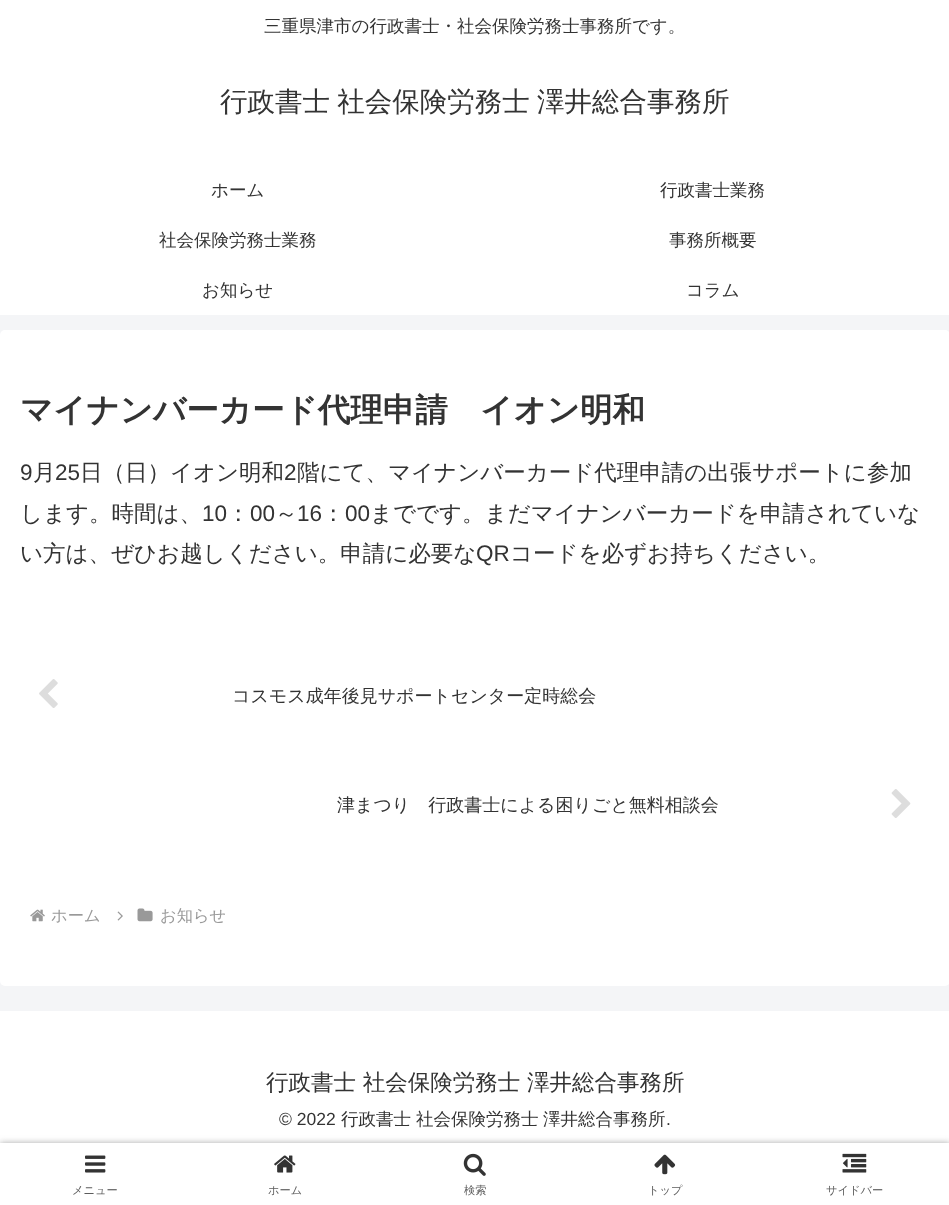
<?xml version="1.0" encoding="UTF-8"?>
<svg xmlns="http://www.w3.org/2000/svg" width="949" height="1205">
    <defs>
        <filter id="blur1" x="-50%" y="-200%" width="200%" height="500%"><feGaussianBlur stdDeviation="3"/></filter>
    </defs>
    <rect width="100%" height="100%" fill="#F4F5F7"/>
    <rect x="0" y="0" width="949" height="315" fill="#FFFFFF"/>
    <text x="264" y="32" font-family="WenQuanYi Zen Hei" font-size="17.5" font-weight="500" fill="#333333">三重県津市の行政書士・社会保険労務士事務所です。</text>
    <text x="220" y="111" word-spacing="-1" font-family="WenQuanYi Zen Hei" font-size="27.5" font-weight="500" fill="#333333">行政書士 社会保険労務士 澤井総合事務所</text>
    <text x="211" y="196" font-family="WenQuanYi Zen Hei" font-size="17.5" font-weight="500" fill="#333333">ホーム</text>
    <text x="660" y="196" font-family="WenQuanYi Zen Hei" font-size="17.5" font-weight="500" fill="#333333">行政書士業務</text>
    <text x="159" y="246" font-family="WenQuanYi Zen Hei" font-size="17.5" font-weight="500" fill="#333333">社会保険労務士業務</text>
    <text x="669" y="246" font-family="WenQuanYi Zen Hei" font-size="17.5" font-weight="500" fill="#333333">事務所概要</text>
    <text x="202" y="296" font-family="WenQuanYi Zen Hei" font-size="17.5" font-weight="500" fill="#333333">お知らせ</text>
    <text x="686" y="296" font-family="WenQuanYi Zen Hei" font-size="17.5" font-weight="500" fill="#333333">コラム</text>
    <rect x="0" y="330" width="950" height="656" rx="5" fill="#FFFFFF"/>
    <text x="20" y="421" font-family="WenQuanYi Zen Hei" font-size="32.5" font-weight="700" fill="#333333">マイナンバーカード代理申請　イオン明和</text>
    <text x="20" y="480" font-family="Liberation Sans" font-size="22.5" fill="#333333">9</text>
    <text x="33" y="480" font-family="WenQuanYi Zen Hei" font-size="22.5" font-weight="500" fill="#333333">月</text>
    <text x="55" y="480" font-family="Liberation Sans" font-size="22.5" fill="#333333">25</text>
    <text x="80" y="480" font-family="WenQuanYi Zen Hei" font-size="22.5" font-weight="500" fill="#333333">日（日）イオン明和</text>
    <text x="284" y="480" font-family="Liberation Sans" font-size="22.5" fill="#333333">2</text>
    <text x="297" y="480" font-family="WenQuanYi Zen Hei" font-size="22.5" font-weight="500" fill="#333333">階にて、マイナンバーカード代理申請の出張サポートに参加</text>
    <text x="20" y="521" font-family="WenQuanYi Zen Hei" font-size="22.5" font-weight="500" fill="#333333">します。時間は、</text>
    <text x="202" y="521" font-family="Liberation Sans" font-size="22.5" fill="#333333">10</text>
    <text x="227" y="521" font-family="WenQuanYi Zen Hei" font-size="22.5" font-weight="500" fill="#333333">：</text>
    <text x="250" y="521" font-family="Liberation Sans" font-size="22.5" fill="#333333">00</text>
    <text x="275" y="521" font-family="WenQuanYi Zen Hei" font-size="22.5" font-weight="500" fill="#333333">～</text>
    <text x="297" y="521" font-family="Liberation Sans" font-size="22.5" fill="#333333">16</text>
    <text x="322" y="521" font-family="WenQuanYi Zen Hei" font-size="22.5" font-weight="500" fill="#333333">：</text>
    <text x="345" y="521" font-family="Liberation Sans" font-size="22.5" fill="#333333">00</text>
    <text x="370" y="521" font-family="WenQuanYi Zen Hei" font-size="22.5" font-weight="500" fill="#333333">までです。まだマイナンバーカードを申請されていな</text>
    <text x="20" y="561" font-family="WenQuanYi Zen Hei" font-size="22.5" font-weight="500" fill="#333333">い方は、ぜひお越しください。申請に必要な</text>
    <text x="476" y="561" font-family="Liberation Sans" font-size="22.5" fill="#333333">QR</text>
    <text x="510" y="561" font-family="WenQuanYi Zen Hei" font-size="22.5" font-weight="500" fill="#333333">コードを必ずお持ちください。</text>
    <image x="39" y="679" width="19" height="29" href="img_01.png"/>
    <text x="232" y="702" font-family="WenQuanYi Zen Hei" font-size="18" font-weight="500" fill="#333333">コスモス成年後見サポートセンター定時総会</text>
    <text x="337" y="811" font-family="WenQuanYi Zen Hei" font-size="18" font-weight="500" fill="#333333">津まつり　行政書士による困りごと無料相談会</text>
    <image x="891" y="789" width="20" height="29" href="img_02.png"/>
    <image x="30" y="909" width="15" height="13" href="img_03.png"/>
    <text x="51" y="921" font-family="WenQuanYi Zen Hei" font-size="16.25" font-weight="500" fill="#999999">ホーム</text>
    <image x="117" y="911" width="6" height="10" href="img_04.png"/>
    <image x="137" y="908" width="16" height="14" href="img_05.png"/>
    <text x="160" y="921" font-family="WenQuanYi Zen Hei" font-size="16.25" font-weight="500" fill="#999999">お知らせ</text>
    <rect x="0" y="1011" width="949" height="132" fill="#FFFFFF"/>
    <text x="266" y="1090" font-family="WenQuanYi Zen Hei" font-size="22.5" font-weight="500" fill="#333333">行政書士 社会保険労務士 澤井総合事務所</text>
    <text x="279" y="1125" font-family="Liberation Sans" font-size="17.5" fill="#333333">© 2022</text>
    <text x="341" y="1125" font-family="WenQuanYi Zen Hei" font-size="17.5" font-weight="500" fill="#333333">行政書士</text>
    <text x="416" y="1125" font-family="WenQuanYi Zen Hei" font-size="17.5" font-weight="500" fill="#333333">社会保険労務士</text>
    <text x="543" y="1125" font-family="WenQuanYi Zen Hei" font-size="17.5" font-weight="500" fill="#333333">澤井総合事務所</text>
    <text x="666" y="1125" font-family="Liberation Sans" font-size="17.5" fill="#333333">.</text>
    <rect x="0" y="1143" width="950" height="62" fill="#A9A9A9" filter="url(#blur1)"/>
    <rect x="0" y="1143" width="949" height="62" fill="#FFFFFF"/>
    <image x="85" y="1155" width="21" height="18" href="img_06.png"/>
    <text x="72" y="1194" font-family="WenQuanYi Zen Hei" font-size="11.25" font-weight="500" fill="#5C5C5C">メニュー</text>
    <image x="274" y="1155" width="22" height="18" href="img_07.png"/>
    <text x="268" y="1194" font-family="WenQuanYi Zen Hei" font-size="11.25" font-weight="500" fill="#5C5C5C">ホーム</text>
    <image x="463" y="1153" width="23" height="23" href="img_08.png"/>
    <text x="464" y="1194" font-family="WenQuanYi Zen Hei" font-size="11.25" font-weight="500" fill="#5C5C5C">検索</text>
    <image x="654" y="1154" width="22" height="21" href="img_09.png"/>
    <text x="648" y="1194" font-family="WenQuanYi Zen Hei" font-size="11.25" font-weight="500" fill="#5C5C5C">トップ</text>
    <image x="842" y="1153" width="25" height="20" href="img_10.png"/>
    <text x="826" y="1194" font-family="WenQuanYi Zen Hei" font-size="11.25" font-weight="500" fill="#5C5C5C">サイドバー</text>
</svg>
